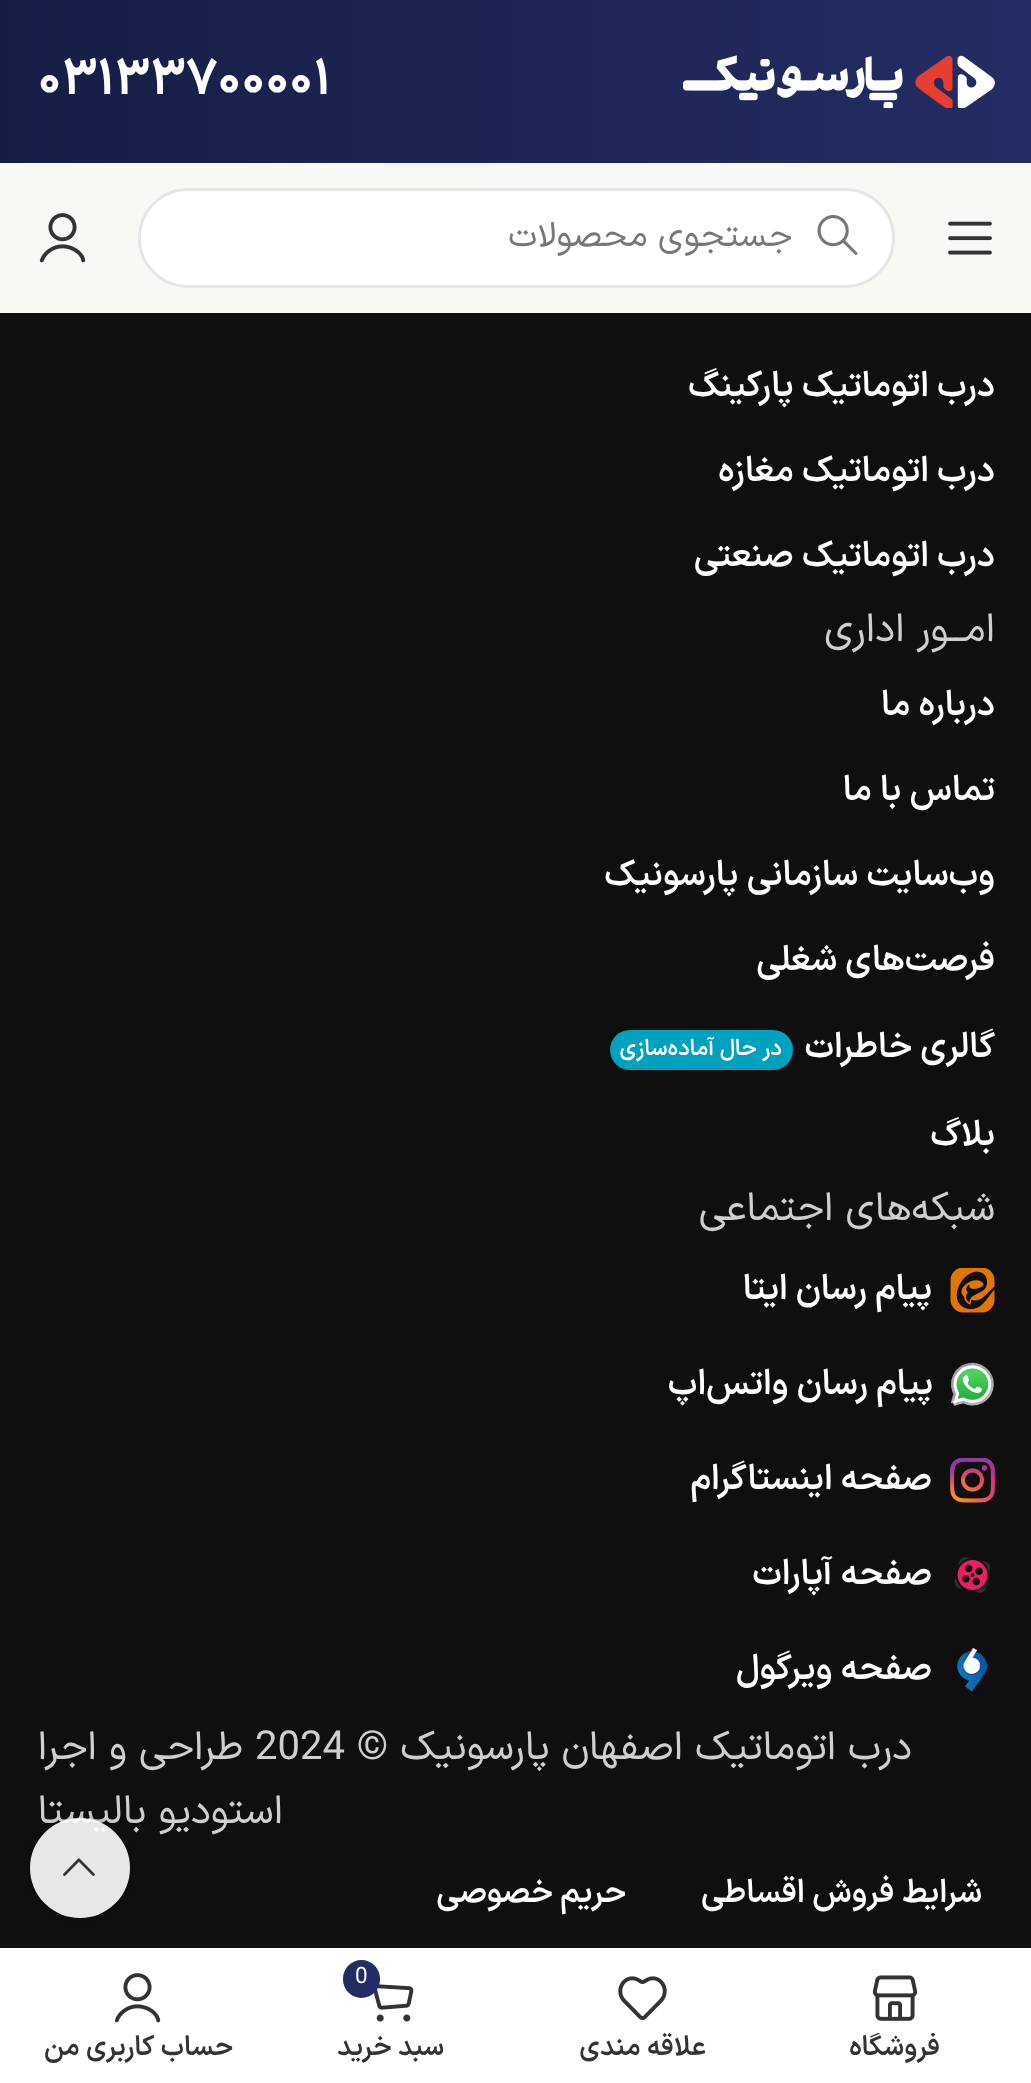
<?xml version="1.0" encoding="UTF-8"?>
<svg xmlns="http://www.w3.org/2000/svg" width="1031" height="2083">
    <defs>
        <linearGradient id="g1" gradientUnits="userSpaceOnUse" x1="0" y1="81" x2="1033" y2="81"><stop offset="0" stop-color="#161D45"/><stop offset="1" stop-color="#242D63"/></linearGradient>
        <clipPath id="clip1"><path d="M 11 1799 H 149 V 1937 H 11 Z M 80 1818 C 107.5 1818 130 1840.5 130 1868 C 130 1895.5 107.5 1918 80 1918 C 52.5 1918 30 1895.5 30 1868 C 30 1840.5 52.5 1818 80 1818 Z" clip-rule="evenodd"/></clipPath>
        <filter id="blur1" x="-50%" y="-200%" width="200%" height="500%"><feGaussianBlur stdDeviation="6"/></filter>
        <clipPath id="clip2"><rect x="793" y="2033" width="202" height="32"/></clipPath>
    </defs>
    <rect width="100%" height="100%" fill="#FFFFFF"/>
    <rect x="0" y="0" width="1031" height="163" fill="url(#g1)"/>
    <image x="683" y="55" width="312" height="53" href="img_01.png"/>
    <text x="38" y="94" font-family="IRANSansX" font-size="50" font-weight="700" letter-spacing="12.5" fill="#FFFFFF">۰۳۱۳۳۷۰۰۰۰۱</text>
    <rect x="0" y="163" width="1031" height="150" fill="#FAF8F5"/>
    <image x="948" y="221" width="44" height="34" href="img_02.png"/>
    <rect x="138" y="188" width="757" height="100" rx="50" fill="#FFFFFF"/>
    <rect x="139.5" y="189.5" width="754" height="97" rx="48.5" fill="none" stroke="#000000" stroke-opacity="0.1" stroke-width="3"/>
    <image x="817" y="215" width="41" height="40" href="img_03.png"/>
    <text x="792" y="246" font-family="IRANSansX" font-size="35" direction="rtl" fill="#777777">جستجوی محصولات</text>
    <image x="39" y="213" width="47" height="50" href="img_04.png"/>
    <rect x="0" y="313" width="1031" height="1635" fill="#0F0F0F"/>
    <text x="995" y="396" font-family="IRANSansX" font-size="35" font-weight="600" direction="rtl" fill="#FFFFFF">درب اتوماتیک پارکینگ</text>
    <text x="995" y="481" font-family="IRANSansX" font-size="35" font-weight="600" direction="rtl" fill="#FFFFFF">درب اتوماتیک مغازه</text>
    <text x="995" y="566" font-family="IRANSansX" font-size="35" font-weight="600" direction="rtl" fill="#FFFFFF">درب اتوماتیک صنعتی</text>
    <text x="995" y="641" font-family="IRANSansX" font-size="40" direction="rtl" fill="#CFCFCF">امــور اداری</text>
    <text x="995" y="715" font-family="IRANSansX" font-size="35" font-weight="600" direction="rtl" fill="#FFFFFF">درباره ما</text>
    <text x="995" y="800" font-family="IRANSansX" font-size="35" font-weight="600" direction="rtl" fill="#FFFFFF">تماس با ما</text>
    <text x="995" y="885" font-family="IRANSansX" font-size="35" font-weight="600" direction="rtl" fill="#FFFFFF">وب‌سایت سازمانی پارسونیک</text>
    <text x="995" y="970" font-family="IRANSansX" font-size="35" font-weight="600" direction="rtl" fill="#FFFFFF">فرصت‌های شغلی</text>
    <text x="995" y="1057" font-family="IRANSansX" font-size="35" font-weight="600" direction="rtl" fill="#FFFFFF">گالری خاطرات</text>
    <rect x="610" y="1030" width="183" height="40" rx="20" fill="#00A1BE"/>
    <text x="782" y="1055" font-family="IRANSansX" font-size="22.5" font-weight="600" direction="rtl" fill="#FFFFFF">در حال آماده‌سازی</text>
    <text x="995" y="1145" font-family="IRANSansX" font-size="35" font-weight="600" direction="rtl" fill="#FFFFFF">بلاگ</text>
    <text x="995" y="1220" font-family="IRANSansX" font-size="40" direction="rtl" fill="#CFCFCF">شبکه‌های اجتماعی</text>
    <image x="950" y="1268" width="45" height="45" href="img_05.png"/>
    <text x="932" y="1299" font-family="IRANSansX" font-size="35" font-weight="600" direction="rtl" fill="#FFFFFF">پیام رسان ایتا</text>
    <image x="950" y="1362" width="44" height="44" href="img_06.png"/>
    <text x="933" y="1394" font-family="IRANSansX" font-size="35" font-weight="600" direction="rtl" fill="#FFFFFF">پیام رسان واتس‌اپ</text>
    <image x="950" y="1458" width="45" height="45" href="img_07.png"/>
    <text x="932" y="1489" font-family="IRANSansX" font-size="35" font-weight="600" direction="rtl" fill="#FFFFFF">صفحه اینستاگرام</text>
    <image x="954" y="1557" width="37" height="36" href="img_08.png"/>
    <text x="932" y="1584" font-family="IRANSansX" font-size="35" font-weight="600" direction="rtl" fill="#FFFFFF">صفحه آپارات</text>
    <image x="957" y="1648" width="30" height="44" href="img_09.png"/>
    <text x="932" y="1679" font-family="IRANSansX" font-size="35" font-weight="600" direction="rtl" fill="#FFFFFF">صفحه ویرگول</text>
    <text x="912" y="1759" font-family="IRANSansX" font-size="40" direction="rtl" fill="#CFCFCF">درب اتوماتیک اصفهان پارسونیک ©</text>
    <text x="255" y="1759" font-family="IRANSansX" font-size="40" fill="#CFCFCF">2024</text>
    <text x="243" y="1759" font-family="IRANSansX" font-size="40" direction="rtl" fill="#CFCFCF">طراحی و اجرا</text>
    <text x="283" y="1823" font-family="IRANSansX" font-size="40" direction="rtl" fill="#CFCFCF">استودیو بالیستا</text>
    <text x="982" y="1902" font-family="IRANSansX" font-size="32.5" font-weight="600" direction="rtl" fill="#FFFFFF">شرایط فروش اقساطی</text>
    <text x="626" y="1902" font-family="IRANSansX" font-size="32.5" font-weight="600" direction="rtl" fill="#FFFFFF">حریم خصوصی</text>
    <g clip-path="url(#clip1)">
        <rect x="30" y="1818" width="100" height="100" rx="50" fill="#000000" fill-opacity="0.17" filter="url(#blur1)"/>
    </g>
    <circle cx="80" cy="1868" r="50" fill="#FFFFFF" fill-opacity="0.9"/>
    <image x="63" y="1858" width="32" height="18" href="img_10.png"/>
    <image x="872" y="1975" width="46" height="46" href="img_11.png"/>
    <g clip-path="url(#clip2)">
        <text x="940" y="2055" font-family="IRANSansX" font-size="27.5" font-weight="600" direction="rtl" fill="#333333">فروشگاه</text>
    </g>
    <image x="618" y="1976" width="49" height="44" href="img_12.png"/>
    <text x="706" y="2055" font-family="IRANSansX" font-size="27.5" font-weight="600" direction="rtl" fill="#333333">علاقه مندی</text>
    <image x="374" y="1984" width="40" height="38" href="img_13.png"/>
    <rect x="343" y="1960" width="37" height="38" rx="18.5" fill="#242D63"/>
    <text x="355" y="1983" font-family="IRANSansX" font-size="22.5" fill="#FFFFFF">0</text>
    <text x="444" y="2055" font-family="IRANSansX" font-size="27.5" font-weight="600" direction="rtl" fill="#333333">سبد خرید</text>
    <image x="114" y="1973" width="47" height="50" href="img_14.png"/>
    <text x="233" y="2055" font-family="IRANSansX" font-size="27.5" font-weight="600" direction="rtl" fill="#333333">حساب کاربری من</text>
</svg>
